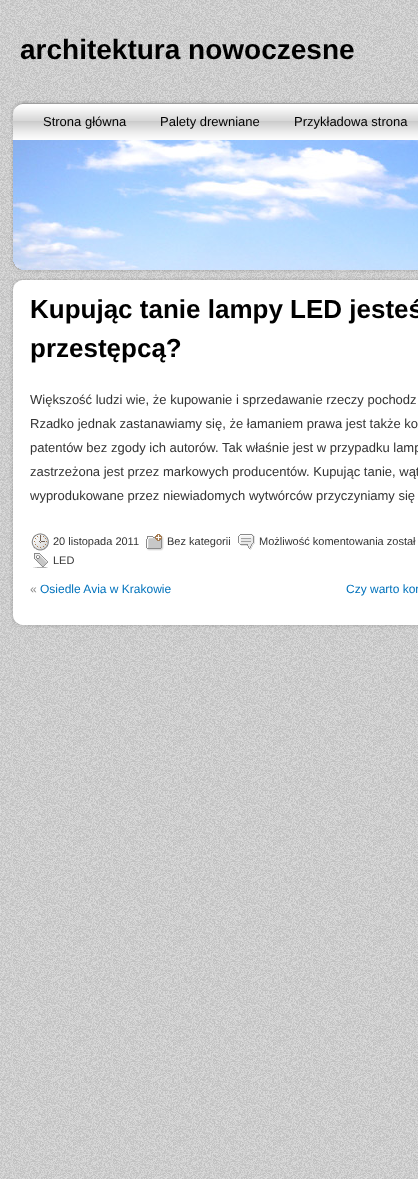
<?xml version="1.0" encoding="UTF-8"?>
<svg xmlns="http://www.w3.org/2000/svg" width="418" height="1179">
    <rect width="100%" height="100%" fill="#FFFFFF"/>
    <image x="0" y="0" width="418" height="1179" href="img_01.png"/>
    <text x="20" y="59" font-family="Liberation Sans" font-size="28" font-weight="700" fill="#000000">architektura nowoczesne</text>
    <image x="10" y="100" width="408" height="40" href="img_02.png"/>
    <text x="43" y="126" font-family="Liberation Sans" font-size="13" fill="#000000">Strona główna</text>
    <text x="160" y="126" font-family="Liberation Sans" font-size="13" fill="#000000">Palety drewniane</text>
    <text x="294" y="126" font-family="Liberation Sans" font-size="13" fill="#000000">Przykładowa strona</text>
    <image x="10" y="140" width="3" height="122" href="img_03.png"/>
    <image x="13" y="140" width="405" height="130" href="img_04.png"/>
    <image x="10" y="262" width="11" height="8" href="img_05.png"/>
    <image x="10" y="270" width="408" height="3" href="img_06.png"/>
    <image x="10" y="290" width="408" height="326" href="img_07.png"/>
    <image x="10" y="277" width="408" height="13" href="img_08.png"/>
    <text font-family="Liberation Sans" font-size="26" font-weight="700" fill="#000000">
        <tspan x="30" y="318">Kupując tanie lampy LED jesteś</tspan>
        <tspan x="30" y="357">przestępcą?</tspan>
    </text>
    <text font-family="Liberation Sans" font-size="13" fill="#333333">
        <tspan x="30" y="404">Większość ludzi wie, że kupowanie i sprzedawanie rzeczy pochodz</tspan>
        <tspan x="30" y="428">Rzadko jednak zastanawiamy się, że łamaniem prawa jest także ko</tspan>
        <tspan x="30" y="452">patentów bez zgody ich autorów. Tak właśnie jest w przypadku lamp</tspan>
        <tspan x="30" y="476">zastrzeżona jest przez markowych producentów. Kupując tanie, wąt</tspan>
        <tspan x="30" y="500">wyprodukowane przez niewiadomych wytwórców przyczyniamy się</tspan>
    </text>
    <image x="31" y="533" width="18" height="18" href="img_09.png"/>
    <text x="53" y="545" font-family="Liberation Sans" font-size="11" fill="#333333">20 listopada 2011</text>
    <image x="146" y="534" width="18" height="17" href="img_10.png"/>
    <text x="167" y="545" font-family="Liberation Sans" font-size="11" fill="#333333">Bez kategorii</text>
    <image x="238" y="534" width="17" height="16" href="img_11.png"/>
    <text x="259" y="545" font-family="Liberation Sans" font-size="11" fill="#333333">Możliwość komentowania został</text>
    <image x="33" y="553" width="15" height="15" href="img_12.png"/>
    <text x="53" y="564" font-family="Liberation Sans" font-size="11" fill="#333333">LED</text>
    <text x="30" y="593" font-family="Liberation Sans" font-size="12" fill="#888888">«</text>
    <text x="40" y="593" font-family="Liberation Sans" font-size="12" fill="#0072BC">Osiedle Avia w Krakowie</text>
    <text x="346" y="593" font-family="Liberation Sans" font-size="12" fill="#0072BC">Czy warto kor</text>
    <image x="10" y="616" width="408" height="13" href="img_13.png"/>
</svg>
